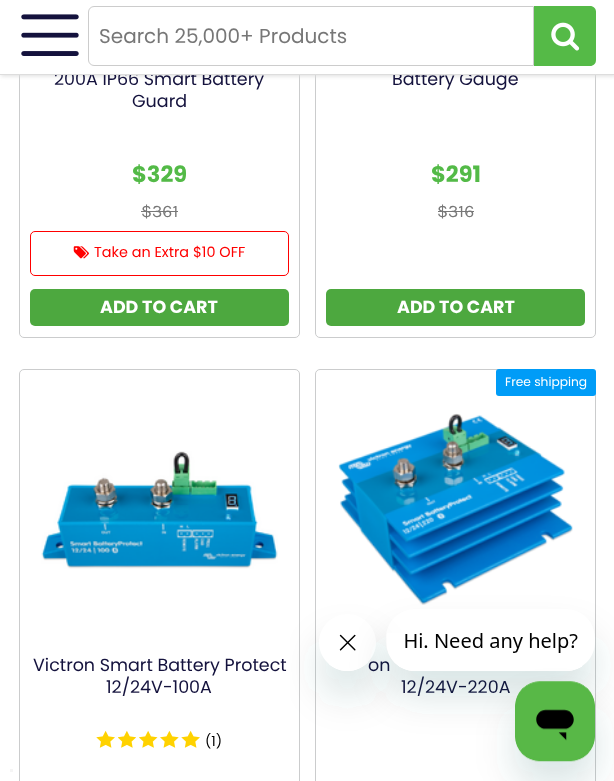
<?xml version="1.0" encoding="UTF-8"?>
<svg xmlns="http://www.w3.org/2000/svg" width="614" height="781">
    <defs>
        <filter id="blur1" x="-50%" y="-200%" width="200%" height="500%"><feGaussianBlur stdDeviation="2"/></filter>
        <clipPath id="clip1"><path d="M 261 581 H 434 V 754 H 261 Z M 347.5 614 C 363 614 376 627 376 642.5 C 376 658 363 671 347.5 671 C 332 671 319 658 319 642.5 C 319 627 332 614 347.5 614 Z" clip-rule="evenodd"/></clipPath>
        <filter id="blur2" x="-50%" y="-200%" width="200%" height="500%"><feGaussianBlur stdDeviation="19"/></filter>
        <clipPath id="clip2"><path d="M 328 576 H 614 V 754 H 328 Z M 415 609 H 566 C 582 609 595 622 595 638 V 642 C 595 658 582 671 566 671 H 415 C 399 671 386 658 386 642 V 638 C 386 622 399 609 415 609 Z" clip-rule="evenodd"/></clipPath>
    </defs>
    <rect width="100%" height="100%" fill="#FFFFFF"/>
    <rect x="19.5" y="-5.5" width="280" height="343" rx="4.5" fill="none" stroke="#CBCCCD"/>
    <rect x="315.5" y="-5.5" width="280" height="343" rx="4.5" fill="none" stroke="#CBCCCD"/>
    <rect x="1" y="0" width="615" height="76" fill="#DDDDDD" filter="url(#blur1)"/>
    <text x="54" y="85" font-family="Poppins" font-size="17.5" fill="#14123D">200A IP66 Smart Battery</text>
    <text x="392" y="85" font-family="Poppins" font-size="17.5" fill="#14123D">Battery Gauge</text>
    <rect x="0" y="0" width="614" height="74" fill="#FFFFFF"/>
    <rect x="0" y="74" width="614" height="1" fill="#DDDDDD"/>
    <image x="21" y="14" width="58" height="42" href="img_01.png"/>
    <path d="M 94 6.5 H 533.5 V 65.5 H 94 C 91 65.5 88.5 63 88.5 60 V 12 C 88.5 9 91 6.5 94 6.5 Z" fill="none" stroke="#CCCCCC"/>
    <text x="99" y="43" font-family="Poppins" font-size="20" fill="#777777">Search 25,000+ Products</text>
    <path d="M 534 6 H 590 C 593.5 6 596 8.5 596 12 V 60 C 596 63.5 593.5 66 590 66 H 534 Z" fill="#55BA47"/>
    <image x="551" y="22" width="29" height="29" href="img_02.png"/>
    <text x="132" y="107" font-family="Poppins" font-size="17.5" fill="#14123D">Guard</text>
    <text x="132" y="182" font-family="Poppins" font-size="22.5" font-weight="700" fill="#53BA47">$329</text>
    <text x="141" y="217" font-family="Karla" font-size="17.5" fill="#777777">$361</text>
    <rect x="141" y="211" width="37" height="1" fill="#777777"/>
    <rect x="30.5" y="231.5" width="258" height="44" rx="4.5" fill="none" stroke="#FF0000"/>
    <image x="73" y="246" width="16" height="13" href="img_03.png"/>
    <text x="94" y="257" font-family="Poppins" font-size="14.4" fill="#FF0000">Take an Extra $10 OFF</text>
    <rect x="30" y="289" width="259" height="37" rx="5" fill="#4DA83F"/>
    <text x="100" y="313" font-family="Poppins" font-size="17.5" font-weight="700" fill="#FFFFFF">ADD TO CART</text>
    <text x="431" y="182" font-family="Poppins" font-size="22.5" font-weight="700" fill="#53BA47">$291</text>
    <text x="437" y="217" font-family="Karla" font-size="17.5" fill="#777777">$316</text>
    <rect x="438" y="211" width="36" height="1" fill="#777777"/>
    <rect x="326" y="289" width="259" height="37" rx="5" fill="#4DA83F"/>
    <text x="397" y="313" font-family="Poppins" font-size="17.5" font-weight="700" fill="#FFFFFF">ADD TO CART</text>
    <rect x="19.5" y="369.5" width="280" height="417" rx="4.5" fill="none" stroke="#CBCCCD"/>
    <image x="41" y="451" width="237" height="118" href="img_04.png"/>
    <text x="33" y="671" font-family="Poppins" font-size="17.5" fill="#14123D">Victron Smart Battery Protect</text>
    <text x="106" y="693" font-family="Poppins" font-size="17.5" fill="#14123D">12/24V-100A</text>
    <image x="96" y="730" width="19" height="18" href="img_05.png"/>
    <image x="118" y="730" width="18" height="18" href="img_06.png"/>
    <image x="139" y="730" width="19" height="18" href="img_07.png"/>
    <image x="160" y="730" width="19" height="18" href="img_08.png"/>
    <image x="181" y="730" width="19" height="18" href="img_05.png"/>
    <text x="205" y="746" font-family="Poppins" font-size="14" fill="#000000">(1)</text>
    <rect x="315.5" y="369.5" width="280" height="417" rx="4.5" fill="none" stroke="#CBCCCD"/>
    <rect x="496" y="369" width="100" height="27" rx="3" fill="#009CF7"/>
    <text x="505" y="386" font-family="Poppins" font-size="12.25" fill="#FFFFFF">Free shipping</text>
    <image x="338" y="413" width="235" height="192" href="img_09.png"/>
    <text x="368" y="671" font-family="Poppins" font-size="17.5" fill="#14123D">on</text>
    <text x="401" y="693" font-family="Poppins" font-size="17.5" fill="#14123D">12/24V-220A</text>
    <rect x="10" y="769" width="3" height="3" fill="#F5F5F5"/>
    <g clip-path="url(#clip1)">
        <rect x="319" y="639" width="57" height="57" rx="28.5" fill="#17494D" fill-opacity="0.15" filter="url(#blur2)"/>
    </g>
    <image x="329" y="634" width="39" height="37" href="img_11.png"/>
    <g clip-path="url(#clip2)">
        <rect x="386" y="634" width="209" height="62" rx="29" fill="#17494D" fill-opacity="0.15" filter="url(#blur2)"/>
    </g>
    <image x="387" y="633" width="195" height="39" href="img_10.png"/>
    <rect x="515" y="706" width="80" height="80" rx="25" fill="#17494D" fill-opacity="0.15" filter="url(#blur2)"/>
    <image x="515" y="681" width="80" height="81" href="img_12.png"/>
</svg>
